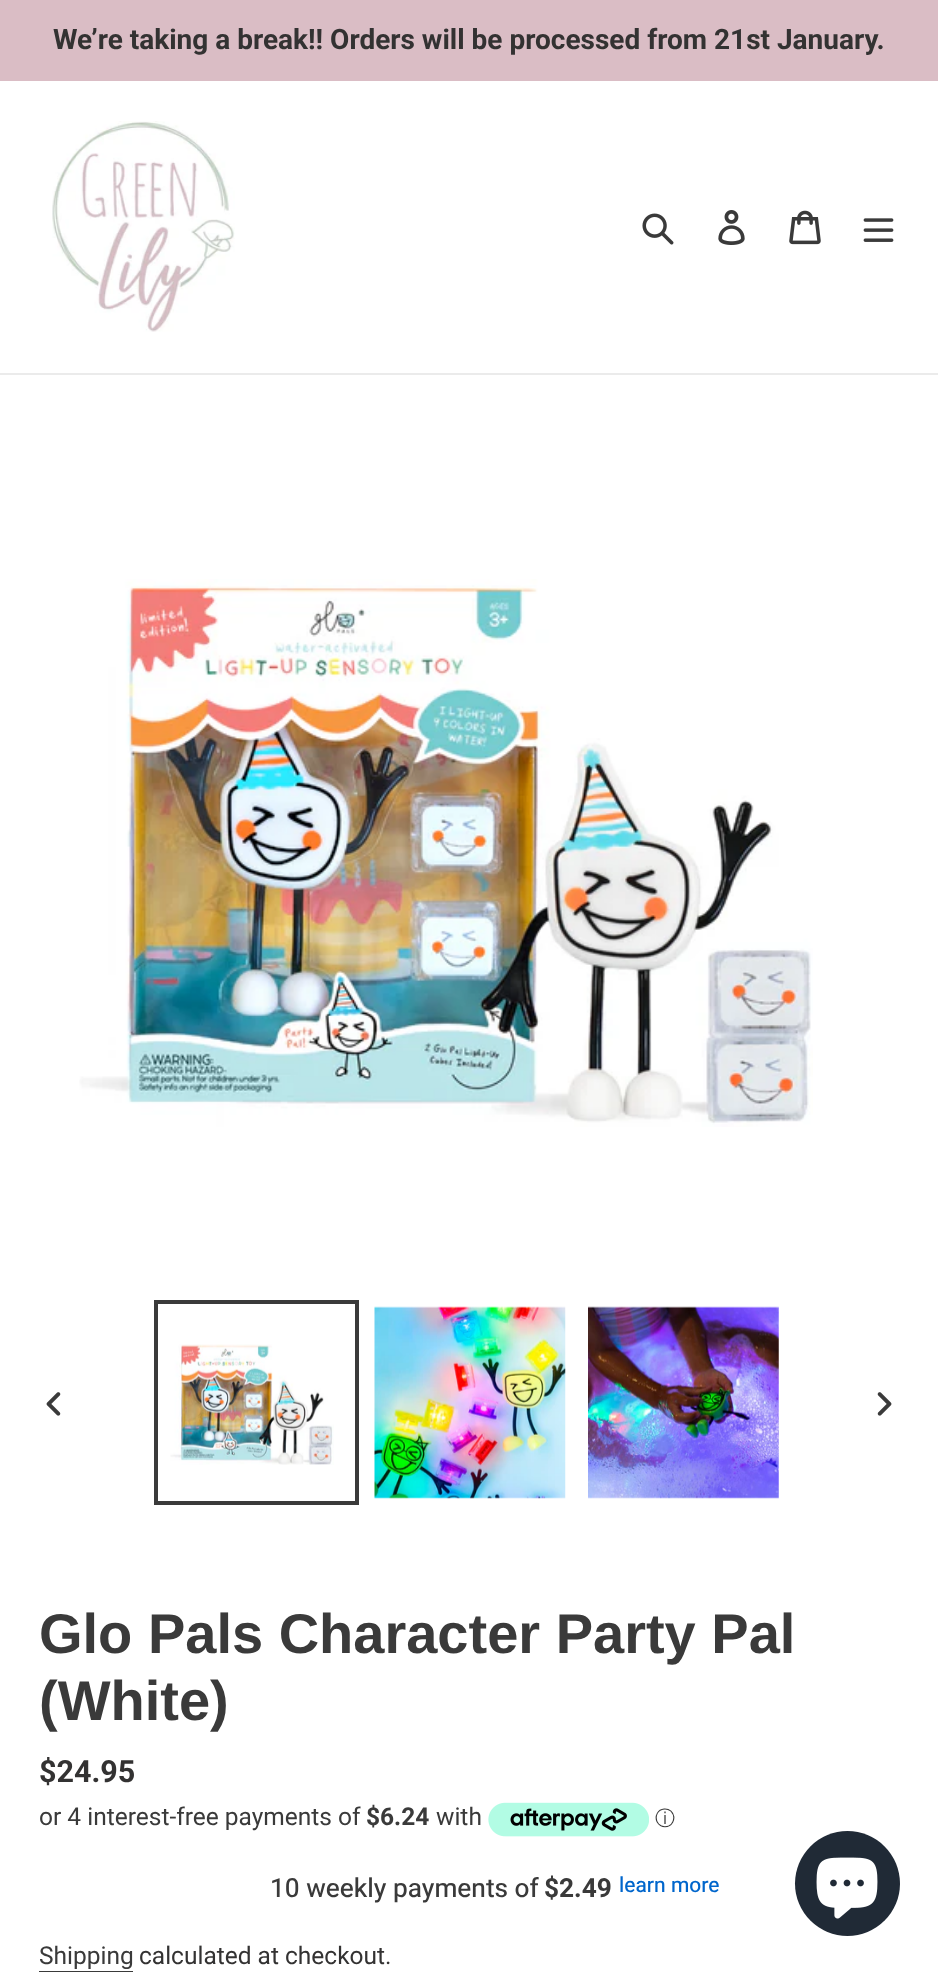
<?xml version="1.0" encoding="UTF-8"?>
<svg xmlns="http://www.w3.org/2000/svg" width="938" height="1972">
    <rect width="100%" height="100%" fill="#FFFFFF"/>
    <rect x="0" y="0" width="938" height="81" fill="#DABDC5"/>
    <text x="53" y="49" font-family="Roboto" font-size="28" font-weight="700" fill="#333232">We’re taking a break!! Orders will be processed from 21st January.</text>
    <rect x="0" y="373" width="938" height="2" fill="#EBEBEB"/>
    <image x="52" y="121" width="183" height="211" href="img_01.png"/>
    <image x="642" y="213" width="32" height="32" href="img_02.png"/>
    <image x="718" y="210" width="27" height="35" href="img_03.png"/>
    <image x="789" y="210" width="32" height="35" href="img_04.png"/>
    <image x="863" y="218" width="31" height="24" href="img_05.png"/>
    <image x="79" y="579" width="734" height="548" href="img_06.png"/>
    <image x="46" y="1392" width="15" height="24" href="img_07.png"/>
    <rect x="156" y="1302" width="201" height="201" fill="none" stroke="#3A3A3A" stroke-width="4"/>
    <image x="170" y="1344" width="164" height="121" href="img_08.png"/>
    <image x="374" y="1306" width="192" height="193" href="img_09.png"/>
    <image x="588" y="1306" width="191" height="193" href="img_10.png"/>
    <image x="877" y="1392" width="15" height="24" href="img_11.png"/>
    <text font-family="Liberation Sans" font-size="56" font-weight="700" fill="#3A3A3A">
        <tspan x="39" y="1653">Glo Pals Character Party Pal</tspan>
        <tspan x="39" y="1720">(White)</tspan>
    </text>
    <text x="39" y="1782" font-family="Roboto" font-size="30.5" font-weight="700" fill="#333232">$24.95</text>
    <text x="39" y="1825" font-family="Roboto" font-size="24.5" fill="#3A3A3A">or 4 interest-free payments of</text>
    <text x="366" y="1825" font-family="Roboto" font-size="24.5" font-weight="700" fill="#3A3A3A">$6.24</text>
    <text x="436" y="1825" font-family="Roboto" font-size="24.5" fill="#3A3A3A">with</text>
    <image x="488" y="1802" width="161" height="35" href="img_12.png"/>
    <text x="655" y="1825" font-family="WenQuanYi Zen Hei" font-size="20" font-weight="500" fill="#3A3A3A">ⓘ</text>
    <text x="270" y="1897" font-family="'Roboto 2'" font-size="26.25" fill="#3A3A3A">10 weekly payments of</text>
    <text x="544" y="1897" font-family="Roboto" font-size="26.25" font-weight="700" fill="#3A3A3A">$2.49</text>
    <text x="619" y="1892" font-family="'Roboto 2'" font-size="21" fill="#0066CC">learn more</text>
    <text x="39" y="1964" font-family="Roboto" font-size="24.5" fill="#3A3A3A">Shipping</text>
    <rect x="39" y="1971" width="94" height="1" fill="#3A3A3A"/>
    <text x="139" y="1964" font-family="Roboto" font-size="24.5" fill="#333232">calculated at checkout.</text>
    <circle cx="847.5" cy="1883.5" r="52.5" fill="#202A36"/>
    <image x="816" y="1857" width="62" height="62" href="img_13.png"/>
</svg>
